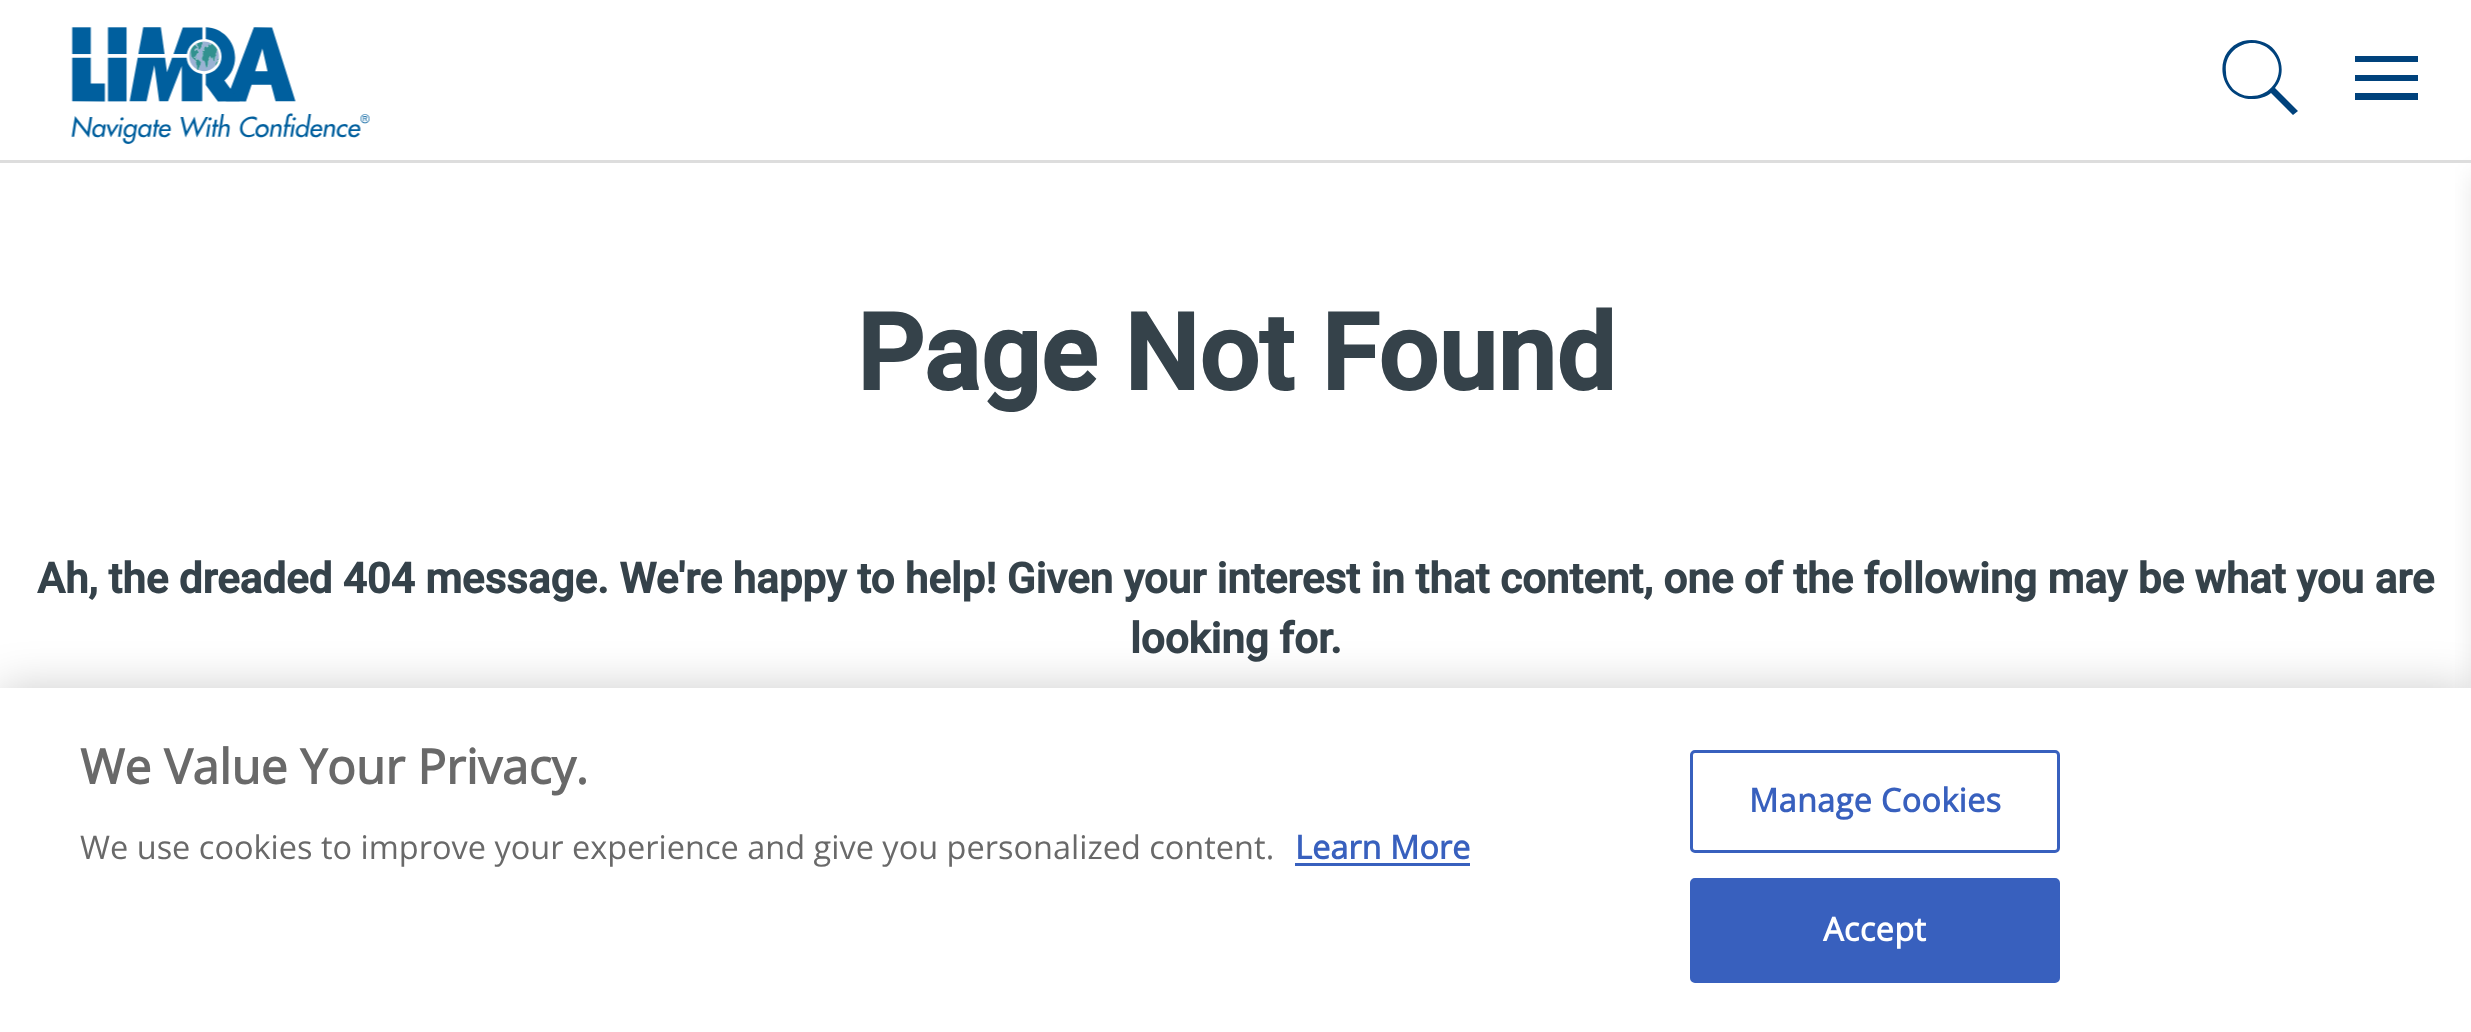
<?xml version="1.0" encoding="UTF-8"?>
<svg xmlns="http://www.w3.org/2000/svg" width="2471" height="1032">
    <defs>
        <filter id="blur1" x="-50%" y="-200%" width="200%" height="500%"><feGaussianBlur stdDeviation="12.5"/></filter>
        <filter id="blur2" x="-50%" y="-200%" width="200%" height="500%"><feGaussianBlur stdDeviation="22.5"/></filter>
    </defs>
    <rect width="100%" height="100%" fill="#FFFFFF"/>
    <rect x="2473" y="175" width="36" height="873" fill="#000000" fill-opacity="0.1" filter="url(#blur1)"/>
    <rect x="0" y="160" width="2471" height="3" fill="#DDDDDD"/>
    <image x="71" y="27" width="299" height="117" href="img_01.png"/>
    <path d="M 2298 111 L 2293 115 L 2271 93 C 2266 97 2259 99 2252 99 C 2218 99 2211 51 2243 41 C 2252 39 2261 40 2269 45 C 2283 55 2286 75 2275 88 Z M 2233 89 C 2238 93 2243 96 2249 96 C 2274 98 2289 69 2271 51 C 2253 33 2223 48 2226 72 C 2226 79 2229 84 2233 89 Z" fill="#00427C"/>
    <path d="M 2355 81 V 75 H 2418 V 81 Z M 2355 62 V 56 H 2418 V 62 Z M 2355 100 V 93 H 2418 V 100 Z" fill="#00427C"/>
    <text x="856" y="390" font-family="Roboto" font-size="106" font-weight="700" fill="#35424A">Page Not Found</text>
    <text x="37" y="593" font-family="Roboto" font-size="42.15" font-weight="700" fill="#35424A">Ah, the dreaded 404 message. We're happy to help! Given your interest in that content, one of the following may be what you are</text>
    <text x="1130" y="653" font-family="Roboto" font-size="42.15" font-weight="700" fill="#35424A">looking for.</text>
    <rect x="0" y="688" width="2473" height="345" fill="#000000" fill-opacity="0.2" filter="url(#blur2)"/>
    <rect x="0" y="688" width="2471" height="344" fill="#FFFFFF"/>
    <text x="80" y="784" font-family="Open Sans" font-size="48" font-weight="700" fill="#696969">We Value Your Privacy.</text>
    <text x="80" y="859" font-family="Open Sans" font-size="32.5" fill="#696969">We use cookies to improve your experience and give you personalized content.</text>
    <text x="1295" y="859" font-family="Open Sans" font-size="32.5" font-weight="700" fill="#3860BE">Learn More</text>
    <rect x="1295" y="863" width="175" height="3" fill="#3860BE"/>
    <rect x="1691.5" y="751.5" width="367" height="100" rx="3.5" fill="none" stroke="#3860BE" stroke-width="3"/>
    <text x="1749" y="812" font-family="Open Sans" font-size="32.5" font-weight="700" letter-spacing="0.3" fill="#3860BE">Manage Cookies</text>
    <rect x="1691.5" y="879.5" width="367" height="102" rx="3.5" fill="#3860BE" stroke="#3860BE" stroke-width="3"/>
    <text x="1823" y="941" font-family="Open Sans" font-size="32.5" font-weight="700" letter-spacing="0.3" fill="#FFFFFF">Accept</text>
</svg>
